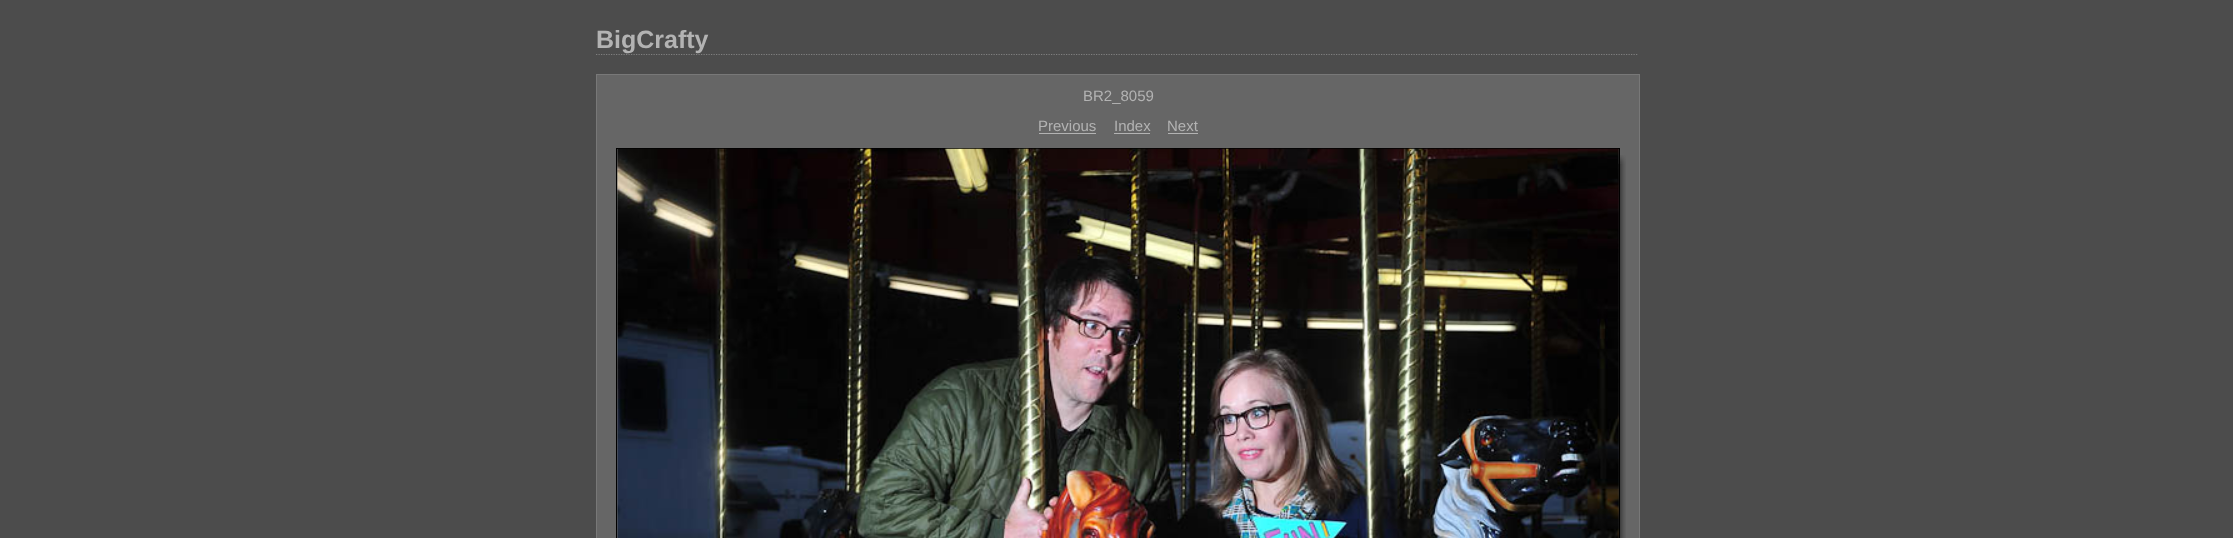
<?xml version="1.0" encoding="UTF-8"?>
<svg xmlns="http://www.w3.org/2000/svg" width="2233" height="538">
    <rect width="100%" height="100%" fill="#4C4C4C"/>
    <path d="M 596 54.5 H 1637.5" fill="none" stroke="#7F7F7F" stroke-width="1.2" stroke-dasharray="1.25 1.25"/>
    <text x="596" y="48" font-family="Liberation Sans" font-size="25" font-weight="700" fill="#B3B3B3">BigCrafty</text>
    <rect x="596.5" y="74.5" width="1043" height="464" fill="#666666" stroke="#787878"/>
    <text x="1083" y="101" font-family="Liberation Sans" font-size="15" fill="#B3B3B3">BR2_8059</text>
    <text x="1038" y="131" font-family="Liberation Sans" font-size="15" fill="#B3B3B3">Previous</text>
    <rect x="1039" y="133" width="57" height="1" fill="#B3B3B3"/>
    <text x="1114" y="131" font-family="Liberation Sans" font-size="15" fill="#B3B3B3">Index</text>
    <rect x="1114" y="133" width="36" height="1" fill="#B3B3B3"/>
    <text x="1167" y="131" font-family="Liberation Sans" font-size="15" fill="#B3B3B3">Next</text>
    <rect x="1168" y="133" width="30" height="1" fill="#B3B3B3"/>
    <image x="1618" y="163" width="8" height="375" href="img_01.png"/>
    <rect x="616.5" y="148.5" width="1003" height="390" fill="none" stroke="#000000"/>
    <image x="617" y="148" width="1002" height="390" href="img_02.png"/>
    <image x="1620" y="155" width="6" height="9" href="img_03.png"/>
</svg>
